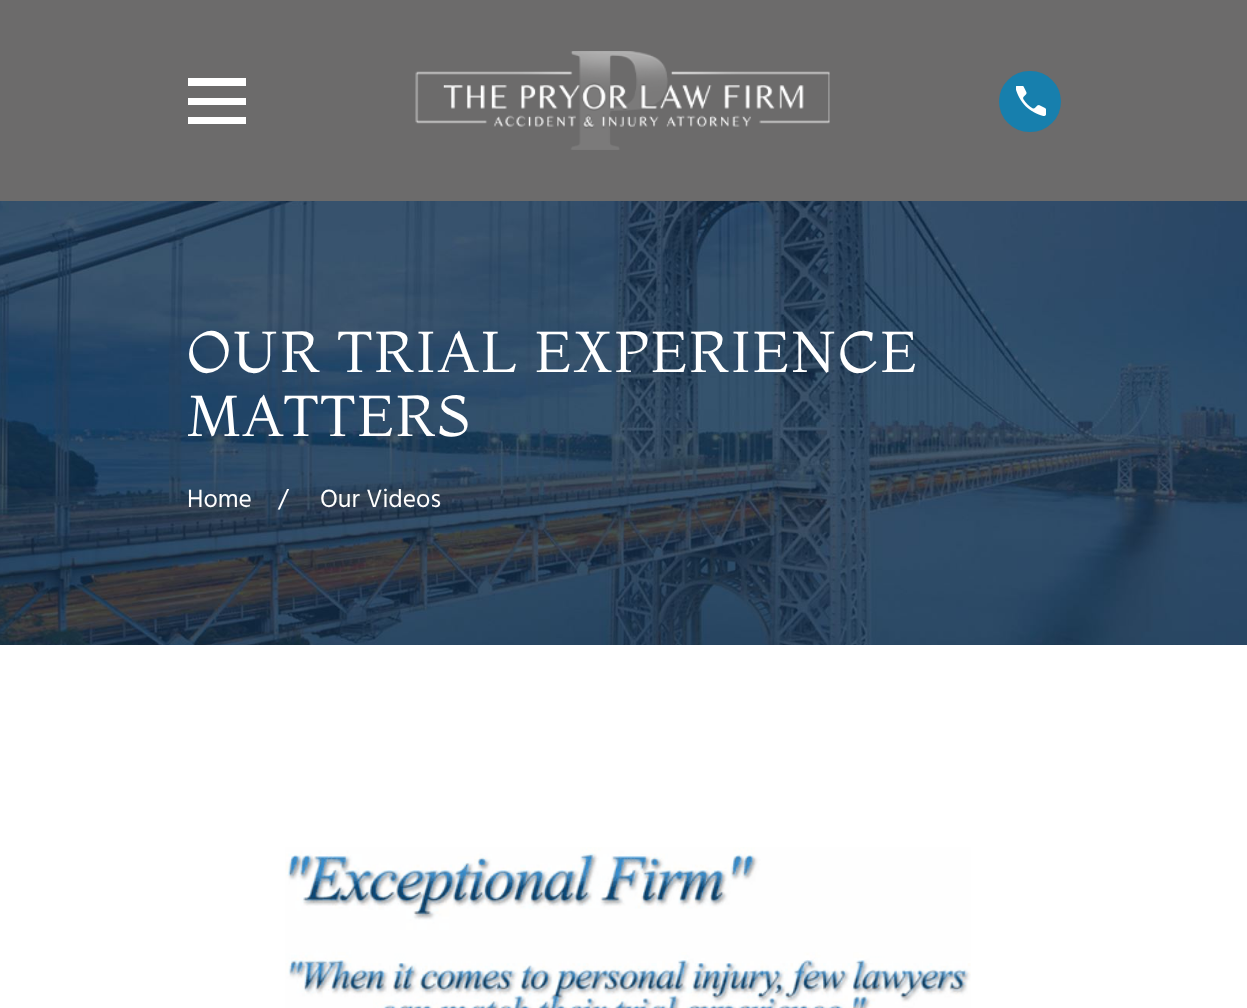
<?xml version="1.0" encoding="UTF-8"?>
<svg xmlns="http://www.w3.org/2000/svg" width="1247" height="1008">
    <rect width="100%" height="100%" fill="#FFFFFF"/>
    <rect x="0" y="0" width="1247" height="201" fill="#6C6B6B"/>
    <path d="M 188 78 V 86 H 246 V 78 Z M 188 98 V 105 H 246 V 98 Z M 188 117 V 124 H 246 V 117 Z" fill="#FFFFFF"/>
    <image x="415" y="51" width="415" height="99" href="img_01.png"/>
    <rect x="999" y="71" width="62" height="61" rx="30.5" fill="#177FAD"/>
    <image x="1016" y="86" width="30" height="30" href="img_02.png"/>
    <image x="0" y="201" width="1247" height="444" href="img_03.png"/>
    <text font-family="Montaga" font-size="57.4" letter-spacing="1.75" fill="#FFFFFF">
        <tspan x="187" y="372">OUR TRIAL EXPERIENCE</tspan>
        <tspan x="187" y="436">MATTERS</tspan>
    </text>
    <text x="187" y="507" font-family="Hind" font-size="25.5" fill="#FFFFFF">Home</text>
    <text x="278" y="507" font-family="Hind" font-size="25.5" fill="#FFFFFF">/</text>
    <text x="320" y="507" font-family="Hind" font-size="25.5" fill="#FFFFFF">Our Videos</text>
    <image x="285" y="847" width="686" height="161" href="img_04.png"/>
</svg>
